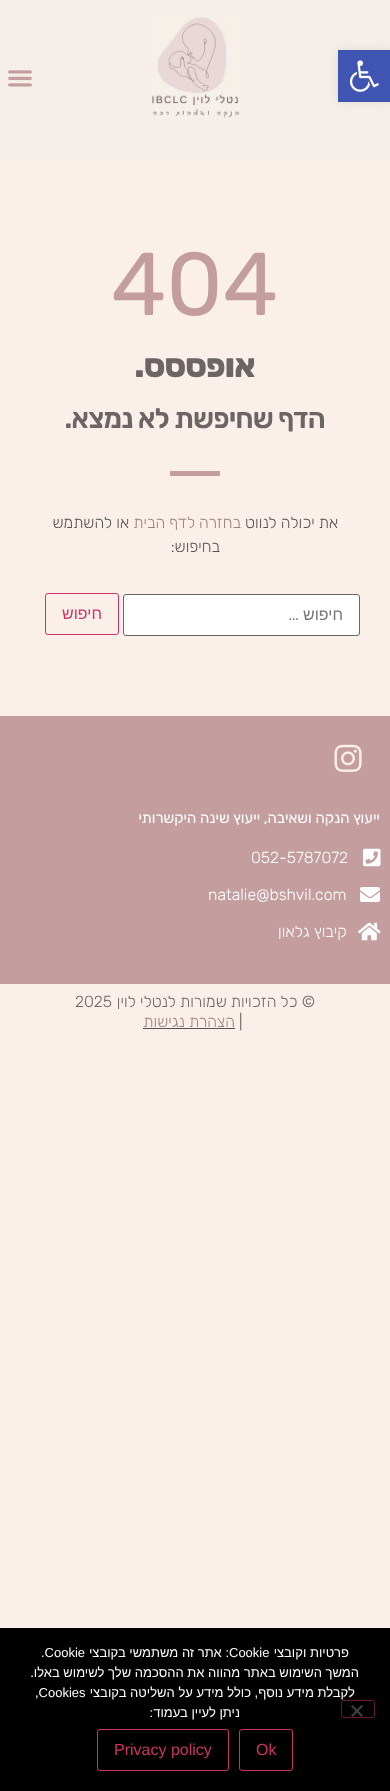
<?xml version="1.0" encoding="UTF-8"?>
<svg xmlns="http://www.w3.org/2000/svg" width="390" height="1791">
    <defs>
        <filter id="blur1" x="-50%" y="-200%" width="200%" height="500%"><feGaussianBlur stdDeviation="5"/></filter>
    </defs>
    <rect width="100%" height="100%" fill="#FBEFEA"/>
    <rect x="0" y="0" width="390" height="160" fill="#F6EFE9"/>
    <image x="152" y="17" width="87" height="101" href="img_01.png"/>
    <image x="8" y="70" width="24" height="17" href="img_02.png"/>
    <rect x="338" y="50" width="52" height="52" fill="#000000" fill-opacity="0.1" filter="url(#blur1)"/>
    <rect x="338" y="50" width="52" height="52" fill="#4054B2"/>
    <image x="349" y="60" width="30" height="32" href="img_03.png"/>
    <text x="111" y="315" font-family="Rubik" font-size="89" fill="#C49E9F">404</text>
    <text x="255" y="377" font-family="Rubik" font-size="33" font-weight="800" letter-spacing="-0.75" direction="rtl" fill="#6B6565">אופססס.</text>
    <text x="325" y="428" font-family="Rubik" font-size="28" font-weight="600" letter-spacing="-0.75" direction="rtl" fill="#6B6565">הדף שחיפשת לא נמצא.</text>
    <rect x="170" y="471" width="50" height="5" fill="#C49E9F"/>
    <text x="338" y="528" font-family="Rubik" font-size="16" font-weight="300" direction="rtl" fill="#545252">את יכולה לנווט</text>
    <text x="241" y="528" font-family="Rubik" font-size="16" font-weight="300" direction="rtl" fill="#9D8081">בחזרה לדף הבית</text>
    <text x="129" y="528" font-family="Rubik" font-size="16" font-weight="300" direction="rtl" fill="#545252">או להשתמש</text>
    <text x="220" y="552" font-family="Rubik" font-size="16" font-weight="300" direction="rtl" fill="#545252">בחיפוש:</text>
    <rect x="123.5" y="594.5" width="236" height="41" rx="2.5" fill="#FFFFFF" stroke="#666666"/>
    <text x="343" y="620" font-family="Liberation Sans" font-size="16" direction="rtl" fill="#757575">חיפוש</text>
    <text x="299" y="620" font-family="Roboto" font-size="16" direction="rtl" fill="#757575">…</text>
    <rect x="45.5" y="593.5" width="73" height="41" rx="2.5" fill="none" stroke="#CC3366"/>
    <text x="102" y="619" font-family="Liberation Sans" font-size="16" direction="rtl" fill="#CC3366">חיפוש</text>
    <rect x="0" y="716" width="390" height="268" fill="#C49E9F"/>
    <image x="334" y="744" width="28" height="28" href="img_04.png"/>
    <text x="380" y="823" font-family="Rubik" font-size="15" direction="rtl" fill="#FFFFFF">ייעוץ הנקה ושאיבה, ייעוץ שינה היקשרותי</text>
    <image x="363" y="848" width="18" height="19" href="img_05.png"/>
    <text x="251" y="863" font-family="Rubik" font-size="16" font-weight="300" fill="#FFFFFF">052-5787072</text>
    <image x="360" y="887" width="20" height="15" href="img_06.png"/>
    <text x="208" y="900" font-family="Rubik" font-size="16" font-weight="300" fill="#FFFFFF">natalie@bshvil.com</text>
    <image x="358" y="922" width="23" height="19" href="img_07.png"/>
    <text x="347" y="937" word-spacing="1" font-family="Rubik" font-size="16" font-weight="300" direction="rtl" fill="#FFFFFF">קיבוץ גלאון</text>
    <text x="315" y="1007" font-family="Rubik" font-size="16" font-weight="300" direction="rtl" fill="#6B6565">© כל הזכויות שמורות לנטלי לוין</text>
    <text x="75" y="1007" font-family="Rubik" font-size="16" font-weight="300" fill="#6B6565">2025</text>
    <text x="239" y="1027" font-family="Rubik" font-size="16" font-weight="300" fill="#545252">|</text>
    <text x="235" y="1027" font-family="Rubik" font-size="16" font-weight="300" direction="rtl" fill="#9D8081">הצהרת נגישות</text>
    <rect x="143" y="1028" width="92" height="1" fill="#545252"/>
    <rect x="0" y="1628" width="390" height="163" fill="#000000"/>
    <text x="349" y="1657" font-family="Liberation Sans" font-size="13" direction="rtl" fill="#FFFFFF">פרטיות וקובצי</text>
    <text x="229" y="1657" font-family="Liberation Sans" font-size="13" fill="#FFFFFF">Cookie</text>
    <text x="229" y="1657" font-family="Liberation Sans" font-size="13" direction="rtl" fill="#FFFFFF">: אתר זה משתמשי בקובצי</text>
    <text x="41" y="1657" font-family="Liberation Sans" font-size="13" fill="#FFFFFF">.Cookie</text>
    <text x="359" y="1677" font-family="Liberation Sans" font-size="13" direction="rtl" fill="#FFFFFF">המשך השימוש באתר מהווה את ההסכמה שלך לשימוש באלו.</text>
    <text x="355" y="1697" font-family="Liberation Sans" font-size="13" direction="rtl" fill="#FFFFFF">לקבלת מידע נוסף, כולל מידע על השליטה בקובצי</text>
    <text x="35" y="1697" font-family="Liberation Sans" font-size="13" fill="#FFFFFF">,Cookies</text>
    <text x="240" y="1717" font-family="Liberation Sans" font-size="13" direction="rtl" fill="#FFFFFF">ניתן לעיין בעמוד:</text>
    <rect x="341.5" y="1700.5" width="33" height="17" rx="2.5" fill="none" stroke="#661A33"/>
    <path d="M 361.5 1705 L 363 1706.5 L 352.5 1717 L 351 1715.5 Z" fill="#404040"/>
    <path d="M 351 1706.5 L 352.5 1705 L 363 1715.5 L 361.5 1717 Z" fill="#404040"/>
    <rect x="239.5" y="1729.5" width="53" height="41" rx="2.5" fill="none" stroke="#CC3366"/>
    <text x="256" y="1755" font-family="Liberation Sans" font-size="16" fill="#CC3366">Ok</text>
    <rect x="97.5" y="1729.5" width="131" height="41" rx="2.5" fill="none" stroke="#CC3366"/>
    <text x="114" y="1755" font-family="Liberation Sans" font-size="16" fill="#CC3366">Privacy policy</text>
</svg>
